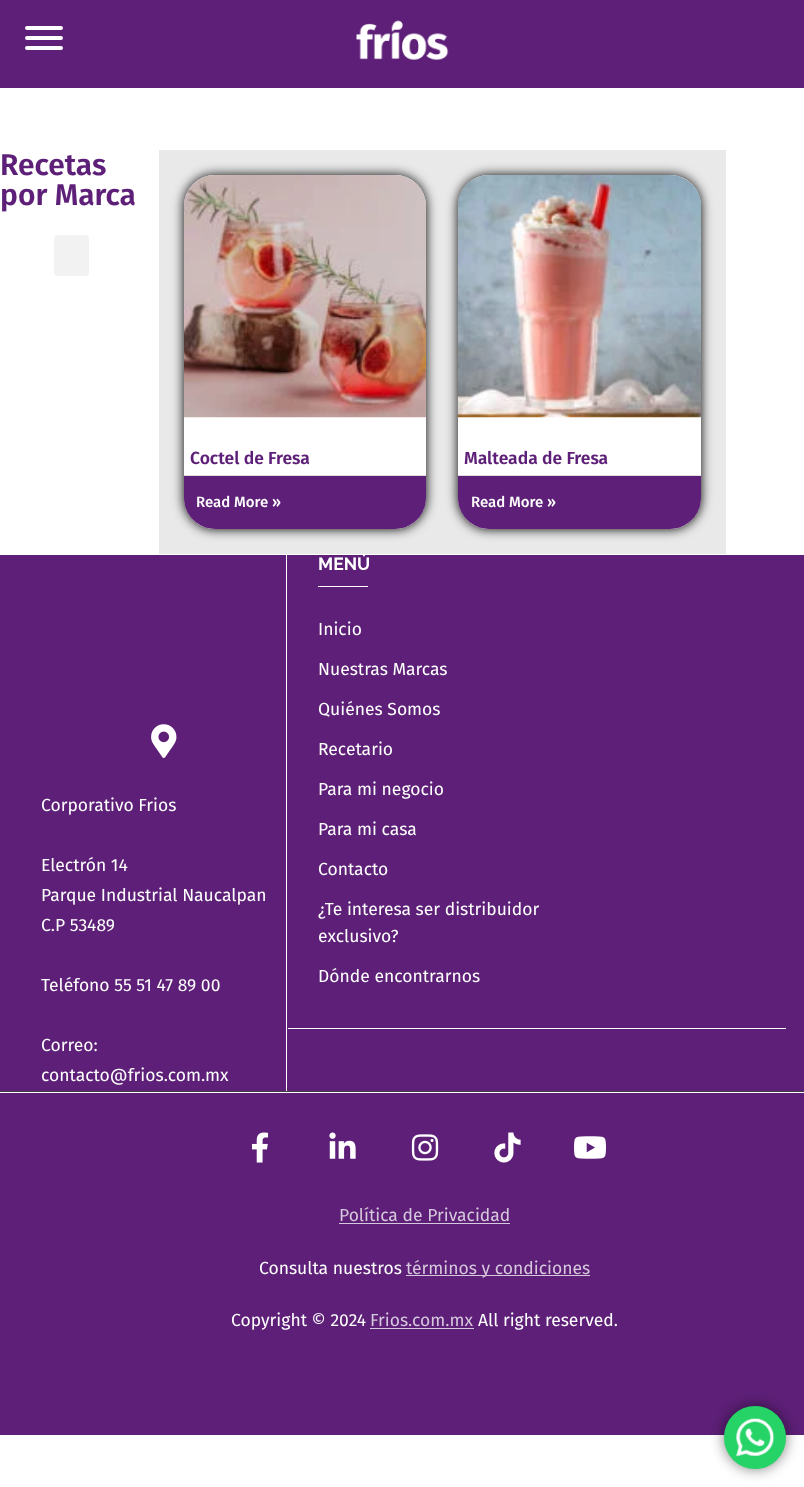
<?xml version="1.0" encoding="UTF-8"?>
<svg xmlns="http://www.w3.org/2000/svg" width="804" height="1487">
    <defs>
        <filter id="blur1" x="-50%" y="-200%" width="200%" height="500%"><feGaussianBlur stdDeviation="6"/></filter>
        <filter id="blur2" x="-50%" y="-200%" width="200%" height="500%"><feGaussianBlur stdDeviation="7"/></filter>
    </defs>
    <rect width="100%" height="100%" fill="#FFFFFF"/>
    <rect x="0" y="0" width="804" height="88" fill="#5D1F77"/>
    <rect x="25" y="36" width="38" height="4" rx="2" fill="#FFFFFF"/>
    <rect x="25" y="26" width="38" height="4" rx="2" fill="#FFFFFF"/>
    <rect x="25" y="46" width="38" height="4" rx="2" fill="#FFFFFF"/>
    <image x="356" y="20" width="93" height="40" href="img_01.png"/>
    <text font-family="Fira Sans" font-size="30" font-weight="600" fill="#5D1F77">
        <tspan x="0" y="175">Recetas</tspan>
        <tspan x="0" y="205">por Marca</tspan>
    </text>
    <rect x="54" y="235" width="35" height="41" rx="4" fill="#F2F2F2"/>
    <rect x="159" y="150" width="567" height="404" fill="#E9E9E9"/>
    <rect x="184" y="175" width="242" height="354" rx="31" fill="#000000" filter="url(#blur1)"/>
    <rect x="184" y="175" width="242" height="354" rx="31" fill="#FFFFFF"/>
    <image x="184" y="175" width="242" height="243" href="img_02.png"/>
    <rect x="184" y="475" width="242" height="1" fill="#DDDDDD"/>
    <text x="190" y="464" font-family="Fira Sans" font-size="17.5" font-weight="600" fill="#5D1F77">Coctel de Fresa</text>
    <path d="M 184 476 H 426 V 498 C 426 515 412 529 395 529 H 215 C 198 529 184 515 184 498 Z" fill="#5D1F77"/>
    <text x="196" y="507" font-family="Fira Sans" font-size="15" font-weight="500" fill="#FFFFFF">Read More »</text>
    <rect x="458" y="175" width="243" height="354" rx="31" fill="#000000" filter="url(#blur1)"/>
    <rect x="458" y="175" width="243" height="354" rx="31" fill="#FFFFFF"/>
    <image x="457" y="175" width="244" height="243" href="img_03.png"/>
    <rect x="458" y="475" width="243" height="1" fill="#DDDDDD"/>
    <text x="464" y="464" font-family="Fira Sans" font-size="17.5" font-weight="600" fill="#5D1F77">Malteada de Fresa</text>
    <path d="M 458 476 H 701 V 498 C 701 515 687 529 670 529 H 489 C 472 529 458 515 458 498 Z" fill="#5D1F77"/>
    <text x="471" y="507" font-family="Fira Sans" font-size="15" font-weight="500" fill="#FFFFFF">Read More »</text>
    <rect x="0" y="555" width="804" height="536" fill="#5D1F77"/>
    <rect x="0" y="1091" width="804" height="1" fill="#403F47"/>
    <image x="151" y="724" width="26" height="34" href="img_04.png"/>
    <text x="41" y="811" font-family="Fira Sans" font-size="17.5" fill="#FFFFFF">Corporativo Frios</text>
    <text font-family="Fira Sans" font-size="17.5" fill="#FFFFFF">
        <tspan x="41" y="871">Electrón 14</tspan>
        <tspan x="41" y="901">Parque Industrial Naucalpan</tspan>
        <tspan x="41" y="931">C.P 53489</tspan>
    </text>
    <text x="41" y="991" font-family="Fira Sans" font-size="17.5" fill="#FFFFFF">Teléfono 55 51 47 89 00</text>
    <text font-family="Fira Sans" font-size="17.5" fill="#FFFFFF">
        <tspan x="41" y="1051">Correo:</tspan>
        <tspan x="41" y="1081">contacto@frios.com.mx</tspan>
    </text>
    <rect x="286" y="555" width="1" height="536" fill="#FFFFFF"/>
    <text x="318" y="570" font-family="Raleway" font-size="17.5" font-weight="700" fill="#FFFFFF">MENÚ</text>
    <rect x="318" y="586" width="50" height="1" fill="#FFFFFF"/>
    <text x="318" y="635" font-family="Fira Sans" font-size="17.5" fill="#FFFFFF">Inicio</text>
    <text x="318" y="675" font-family="Fira Sans" font-size="17.5" fill="#FFFFFF">Nuestras Marcas</text>
    <text x="318" y="715" font-family="Fira Sans" font-size="17.5" fill="#FFFFFF">Quiénes Somos</text>
    <text x="318" y="755" font-family="Fira Sans" font-size="17.5" fill="#FFFFFF">Recetario</text>
    <text x="318" y="795" font-family="Fira Sans" font-size="17.5" fill="#FFFFFF">Para mi negocio</text>
    <text x="318" y="835" font-family="Fira Sans" font-size="17.5" fill="#FFFFFF">Para mi casa</text>
    <text x="318" y="875" font-family="Fira Sans" font-size="17.5" fill="#FFFFFF">Contacto</text>
    <text font-family="Fira Sans" font-size="17.5" fill="#FFFFFF">
        <tspan x="318" y="915">¿Te interesa ser distribuidor</tspan>
        <tspan x="318" y="942">exclusivo?</tspan>
    </text>
    <text x="318" y="982" font-family="Fira Sans" font-size="17.5" fill="#FFFFFF">Dónde encontrarnos</text>
    <rect x="288" y="1028" width="498" height="1" fill="#FFFFFF"/>
    <rect x="0" y="1093" width="804" height="342" fill="#5D1F77"/>
    <image x="251" y="1132" width="18" height="31" href="img_05.png"/>
    <image x="329" y="1132" width="27" height="27" href="img_06.png"/>
    <image x="411" y="1134" width="28" height="27" href="img_07.png"/>
    <image x="494" y="1132" width="27" height="31" href="img_08.png"/>
    <image x="574" y="1136" width="32" height="23" href="img_09.png"/>
    <text x="339" y="1221" font-family="Fira Sans" font-size="17.5" fill="#D6C8DD">Política de Privacidad</text>
    <rect x="339" y="1223" width="171" height="1" fill="#D6C8DD"/>
    <text x="259" y="1274" font-family="Fira Sans" font-size="17.5" fill="#FFFFFF">Consulta nuestros</text>
    <rect x="406" y="1275" width="184" height="1" fill="#D6C8DD"/>
    <text x="406" y="1274" font-family="Fira Sans" font-size="17.5" fill="#D6C8DD">términos y condiciones</text>
    <text x="231" y="1326" font-family="Fira Sans" font-size="17.5" fill="#FFFFFF">Copyright © 2024</text>
    <text x="370" y="1326" font-family="Fira Sans" font-size="17.5" fill="#D6C8DD">Frios.com.mx</text>
    <rect x="370" y="1328" width="104" height="1" fill="#D6C8DD"/>
    <text x="478" y="1326" font-family="Fira Sans" font-size="17.5" fill="#FFFFFF">All right reserved.</text>
    <rect x="724" y="1406" width="62" height="63" rx="31" fill="#000000" fill-opacity="0.5" filter="url(#blur2)"/>
    <rect x="724" y="1406" width="62" height="63" rx="31" fill="#25D366"/>
    <image x="736" y="1418" width="39" height="39" href="img_10.png"/>
</svg>
